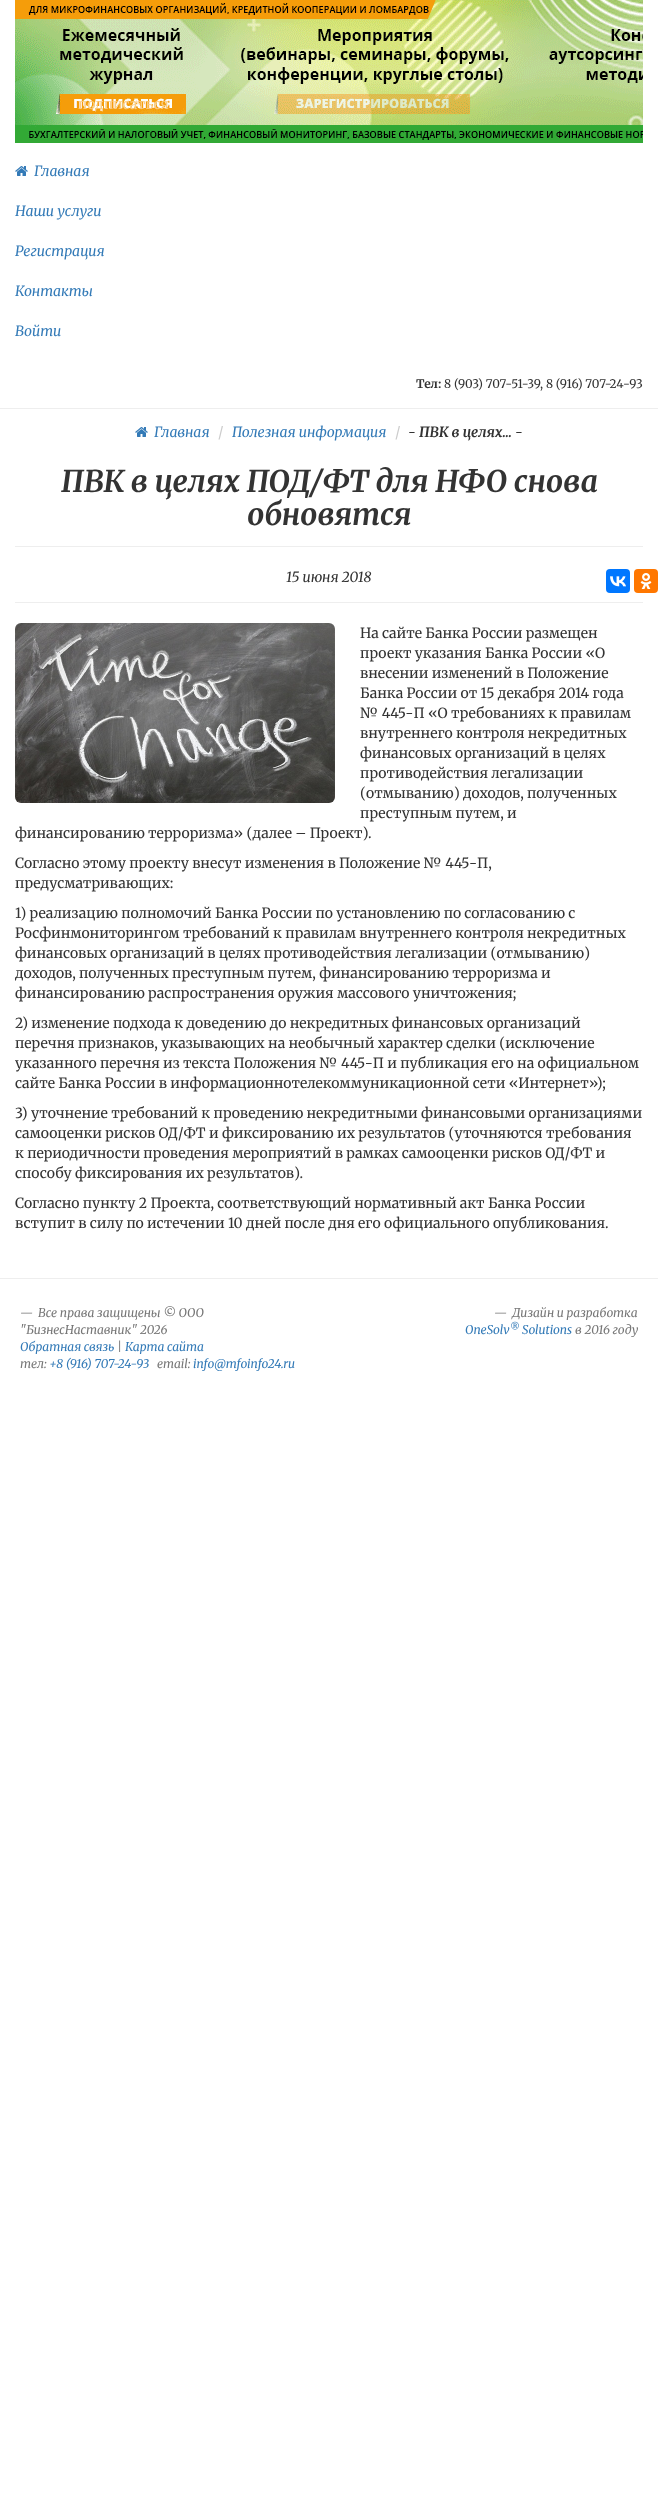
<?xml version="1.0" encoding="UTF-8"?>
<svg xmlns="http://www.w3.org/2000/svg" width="658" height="2494">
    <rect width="100%" height="100%" fill="#FFFFFF"/>
    <rect x="0" y="408" width="658" height="1" fill="#EEEEEE"/>
    <image x="15" y="0" width="628" height="143" href="img_01.png"/>
    <text x="78" y="109" font-family="Merriweather" font-size="14" fill="#F9CC83">подписаться</text>
    <image x="15" y="166" width="13" height="10" href="img_02.png"/>
    <text x="34" y="176" font-family="Merriweather" font-size="14" font-style="italic" fill="#337AB7">Главная</text>
    <text x="15" y="216" font-family="Merriweather" font-size="14" font-style="italic" fill="#337AB7">Наши услуги</text>
    <text x="15" y="256" font-family="Merriweather" font-size="14" font-style="italic" fill="#337AB7">Регистрация</text>
    <text x="15" y="296" font-family="Merriweather" font-size="14" font-style="italic" fill="#337AB7">Контакты</text>
    <text x="15" y="336" font-family="Merriweather" font-size="14" font-style="italic" fill="#337AB7">Войти</text>
    <text x="416" y="388" font-family="Merriweather" font-size="11.9" font-weight="700" fill="#333333">Тел:</text>
    <text x="444" y="388" font-family="Merriweather" font-size="11.9" fill="#333333">8 (903) 707-51-39, 8 (916) 707-24-93</text>
    <image x="135" y="427" width="13" height="10" href="img_02.png"/>
    <text x="154" y="437" font-family="Merriweather" font-size="14" font-style="italic" fill="#337AB7">Главная</text>
    <text x="218" y="437" font-family="Merriweather" font-size="14" fill="#CCCCCC">/</text>
    <text x="232" y="437" font-family="Merriweather" font-size="14" font-style="italic" fill="#337AB7">Полезная информация</text>
    <text x="395" y="437" font-family="Merriweather" font-size="14" fill="#CCCCCC">/</text>
    <text x="408" y="437" font-family="Merriweather" font-size="14" font-style="italic" fill="#333333">-</text>
    <text x="419" y="437" font-family="Merriweather" font-size="14" font-weight="700" font-style="italic" fill="#333333">ПВК в целях...</text>
    <text x="515" y="437" font-family="Merriweather" font-size="14" font-style="italic" fill="#333333">-</text>
    <text x="61" y="492" font-family="Merriweather" font-size="30" font-weight="700" font-style="italic" fill="#333333">ПВК в целях ПОД/ФТ для НФО снова</text>
    <text x="247" y="525" font-family="Merriweather" font-size="30" font-weight="700" font-style="italic" fill="#333333">обновятся</text>
    <rect x="15" y="546" width="628" height="1" fill="#EEEEEE"/>
    <text x="286" y="582" font-family="Merriweather" font-size="14" font-style="italic" fill="#333333">15 июня 2018</text>
    <rect x="606" y="569" width="24" height="24" rx="4" fill="#0077FF"/>
    <image x="610" y="576" width="16" height="11" href="img_03.png"/>
    <rect x="634" y="569" width="24" height="24" rx="4" fill="#FF7700"/>
    <image x="640" y="573" width="12" height="16" href="img_04.png"/>
    <rect x="15" y="602" width="628" height="1" fill="#EEEEEE"/>
    <image x="15" y="623" width="320" height="180" href="img_05.png"/>
    <text font-family="Merriweather" font-size="14" fill="#333333">
        <tspan x="360" y="638">На сайте Банка России размещен</tspan>
        <tspan x="360" y="658">проект указания Банка России «О</tspan>
        <tspan x="360" y="678">внесении изменений в Положение</tspan>
        <tspan x="360" y="698">Банка России от 15 декабря 2014 года</tspan>
        <tspan x="360" y="718">№ 445-П «О требованиях к правилам</tspan>
        <tspan x="360" y="738">внутреннего контроля некредитных</tspan>
        <tspan x="360" y="758">финансовых организаций в целях</tspan>
        <tspan x="360" y="778">противодействия легализации</tspan>
        <tspan x="360" y="798">(отмыванию) доходов, полученных</tspan>
        <tspan x="360" y="818">преступным путем, и</tspan>
    </text>
    <text x="15" y="838" font-family="Merriweather" font-size="14" fill="#333333">финансированию терроризма» (далее – Проект).</text>
    <text font-family="Merriweather" font-size="14" fill="#333333">
        <tspan x="15" y="868">Согласно этому проекту внесут изменения в Положение № 445-П,</tspan>
        <tspan x="15" y="888">предусматривающих:</tspan>
    </text>
    <text font-family="Merriweather" font-size="14" fill="#333333">
        <tspan x="15" y="918">1) реализацию полномочий Банка России по установлению по согласованию с</tspan>
        <tspan x="15" y="938">Росфинмониторингом требований к правилам внутреннего контроля некредитных</tspan>
        <tspan x="15" y="958">финансовых организаций в целях противодействия легализации (отмыванию)</tspan>
        <tspan x="15" y="978">доходов, полученных преступным путем, финансированию терроризма и</tspan>
        <tspan x="15" y="998">финансированию распространения оружия массового уничтожения;</tspan>
    </text>
    <text font-family="Merriweather" font-size="14" fill="#333333">
        <tspan x="15" y="1028">2) изменение подхода к доведению до некредитных финансовых организаций</tspan>
        <tspan x="15" y="1048">перечня признаков, указывающих на необычный характер сделки (исключение</tspan>
        <tspan x="15" y="1068">указанного перечня из текста Положения № 445-П и публикация его на официальном</tspan>
        <tspan x="15" y="1088">сайте Банка России в информационнотелекоммуникационной сети «Интернет»);</tspan>
    </text>
    <text font-family="Merriweather" font-size="14" fill="#333333">
        <tspan x="15" y="1118">3) уточнение требований к проведению некредитными финансовыми организациями</tspan>
        <tspan x="15" y="1138">самооценки рисков ОД/ФТ и фиксированию их результатов (уточняются требования</tspan>
        <tspan x="15" y="1158">к периодичности проведения мероприятий в рамках самооценки рисков ОД/ФТ и</tspan>
        <tspan x="15" y="1178">способу фиксирования их результатов).</tspan>
    </text>
    <text font-family="Merriweather" font-size="14" fill="#333333">
        <tspan x="15" y="1208">Согласно пункту 2 Проекта, соответствующий нормативный акт Банка России</tspan>
        <tspan x="15" y="1228">вступит в силу по истечении 10 дней после дня его официального опубликования.</tspan>
    </text>
    <rect x="0" y="1278" width="658" height="1" fill="#EEEEEE"/>
    <text x="20" y="1317" font-family="Merriweather" font-size="12" font-style="italic" fill="#777777">—</text>
    <text x="38" y="1317" font-family="Merriweather" font-size="12" font-style="italic" fill="#777777">Все права защищены © ООО</text>
    <text x="20" y="1334" font-family="Merriweather" font-size="12" font-style="italic" fill="#777777">"БизнесНаставник" 2026</text>
    <text x="20" y="1351" font-family="Merriweather" font-size="12" font-style="italic" fill="#337AB7">Обратная связь</text>
    <text x="117" y="1351" font-family="Merriweather" font-size="12" font-style="italic" fill="#777777">|</text>
    <text x="125" y="1351" font-family="Merriweather" font-size="12" font-style="italic" fill="#337AB7">Карта сайта</text>
    <text x="20" y="1368" font-family="Merriweather" font-size="12" font-style="italic" fill="#777777">тел:</text>
    <text x="49" y="1368" font-family="Merriweather" font-size="12" font-style="italic" fill="#337AB7">+8 (916) 707-24-93</text>
    <text x="157" y="1368" font-family="Merriweather" font-size="12" font-style="italic" fill="#777777">email:</text>
    <text x="193" y="1368" font-family="Merriweather" font-size="12" font-style="italic" fill="#337AB7">info@mfoinfo24.ru</text>
    <text x="494" y="1317" font-family="Merriweather" font-size="12" font-style="italic" fill="#777777">—</text>
    <text x="512" y="1317" font-family="Merriweather" font-size="12" font-style="italic" fill="#777777">Дизайн и разработка</text>
    <text x="465" y="1334" font-family="Merriweather" font-size="12" font-style="italic" fill="#337AB7">OneSolv</text>
    <text x="510" y="1330" font-family="Merriweather" font-size="9" font-style="italic" fill="#337AB7">®</text>
    <text x="522" y="1334" font-family="Merriweather" font-size="12" font-style="italic" fill="#337AB7">Solutions</text>
    <text x="575" y="1334" font-family="Merriweather" font-size="12" font-style="italic" fill="#777777">в 2016 году</text>
</svg>
